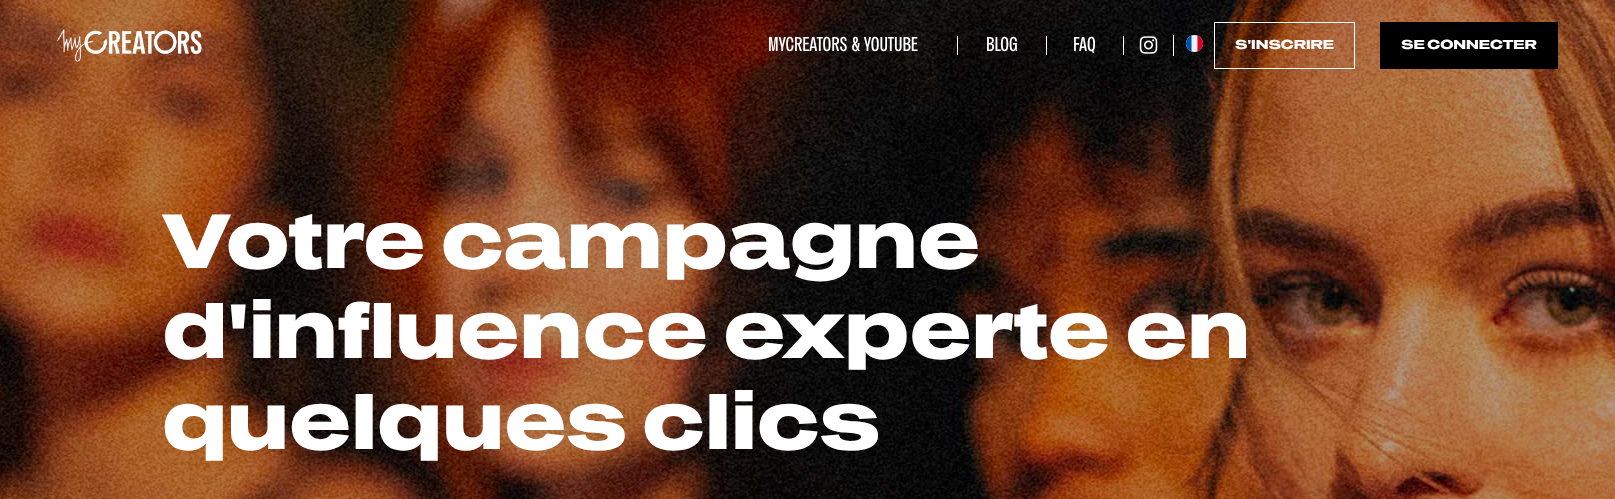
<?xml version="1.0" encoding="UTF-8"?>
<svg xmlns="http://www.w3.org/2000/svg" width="1615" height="499">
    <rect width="100%" height="100%" fill="#FFFFFF"/>
    <image x="0" y="0" width="1615" height="499" href="img_04.png"/>
    <image x="57" y="29" width="145" height="33" href="img_01.png"/>
    <rect x="957" y="36" width="1" height="19" fill="#FFFFFF"/>
    <text x="768" y="51" font-family="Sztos" font-size="20" font-weight="300" fill="#FFFFFF">MYCREATORS &amp; YOUTUBE</text>
    <rect x="1046" y="36" width="1" height="19" fill="#FFFFFF"/>
    <text x="986" y="51" font-family="Sztos" font-size="20" font-weight="300" fill="#FFFFFF">BLOG</text>
    <rect x="1123" y="36" width="1" height="19" fill="#FFFFFF"/>
    <text x="1073" y="51" font-family="Sztos" font-size="20" font-weight="300" fill="#FFFFFF">FAQ</text>
    <rect x="1173" y="35" width="1" height="21" fill="#FFFFFF"/>
    <image x="1139" y="36" width="19" height="18" href="img_02.png"/>
    <image x="1186" y="35" width="17" height="17" href="img_03.png"/>
    <rect x="1214.5" y="22.5" width="140" height="46" fill="none" stroke="#FFFFFF"/>
    <text x="1235" y="49" font-family="Sztos" font-size="13" font-weight="700" fill="#FFFFFF">S'INSCRIRE</text>
    <rect x="1380" y="22" width="178" height="47" fill="#000000"/>
    <text x="1401" y="49" font-family="Sztos" font-size="13" font-weight="700" fill="#FFFFFF">SE CONNECTER</text>
    <text font-family="Sztos" font-size="76.5" font-weight="700" fill="#FFFFFF">
        <tspan x="162" y="268">Votre campagne</tspan>
        <tspan x="162" y="358">d'influence experte en</tspan>
        <tspan x="162" y="449">quelques clics</tspan>
    </text>
</svg>
